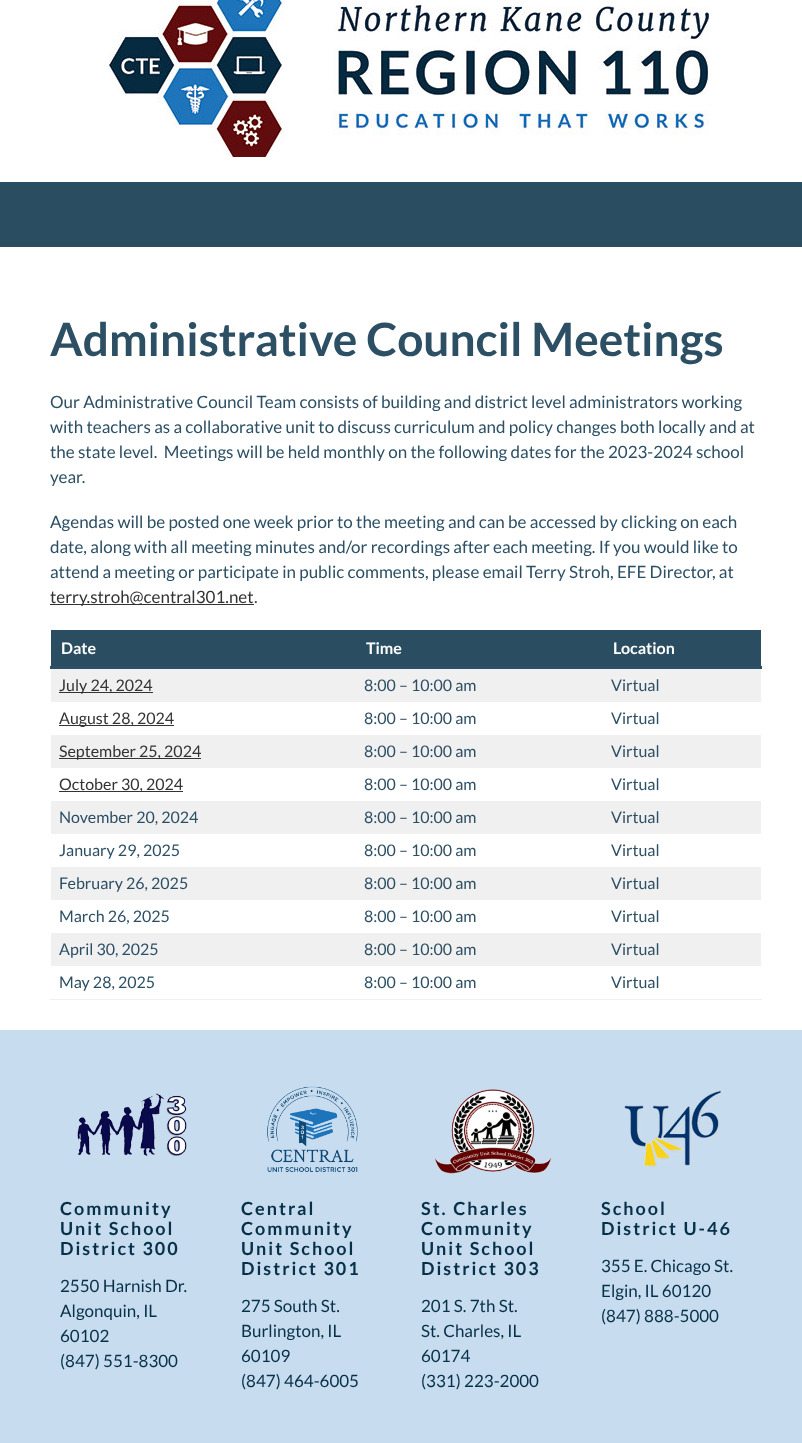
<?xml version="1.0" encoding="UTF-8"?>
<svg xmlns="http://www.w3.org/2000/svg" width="802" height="1443">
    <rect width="100%" height="100%" fill="#FFFFFF"/>
    <image x="109" y="0" width="600" height="157" href="img_01.png"/>
    <rect x="0" y="182" width="802" height="65" fill="#2A4D62"/>
    <text x="50" y="356" font-family="Lato" font-size="46" font-weight="700" fill="#2C4F64">Administrative Council Meetings</text>
    <text font-family="Lato" font-size="17" fill="#2C4F64" xml:space="preserve"><tspan x="50" y="408">Our Administrative Council Team consists of building and district level administrators working</tspan><tspan x="50" y="433">with teachers as a collaborative unit to discuss curriculum and policy changes both locally and at</tspan><tspan x="50" y="458">the state level.  Meetings will be held monthly on the following dates for the 2023-2024 school</tspan><tspan x="50" y="483">year.</tspan></text>
    <text font-family="Lato" font-size="17" fill="#2C4F64">
        <tspan x="50" y="528">Agendas will be posted one week prior to the meeting and can be accessed by clicking on each</tspan>
        <tspan x="50" y="553">date, along with all meeting minutes and/or recordings after each meeting. If you would like to</tspan>
        <tspan x="50" y="578">attend a meeting or participate in public comments, please email Terry Stroh, EFE Director, at</tspan>
    </text>
    <rect x="50" y="604" width="204" height="1" fill="#333333"/>
    <text x="50" y="603" font-family="Lato" font-size="17" fill="#333333">terry.stroh@central301.net</text>
    <text x="254" y="603" font-family="Lato" font-size="17" fill="#2C4F64">.</text>
    <rect x="50" y="999" width="712" height="1" fill="#F0F0F0"/>
    <rect x="50" y="666" width="712" height="3" fill="#2C4F64"/>
    <rect x="51" y="630" width="710" height="36" fill="#2A4D62"/>
    <text x="61" y="654" font-family="Lato" font-size="16" font-weight="700" fill="#FFFFFF">Date</text>
    <text x="366" y="654" font-family="Lato" font-size="16" font-weight="700" fill="#FFFFFF">Time</text>
    <text x="613" y="654" font-family="Lato" font-size="16" font-weight="700" fill="#FFFFFF">Location</text>
    <rect x="51" y="669" width="710" height="33" fill="#F0F0F0"/>
    <rect x="59" y="692" width="94" height="1" fill="#333333"/>
    <text x="59" y="691" font-family="Lato" font-size="16" fill="#333333">July 24, 2024</text>
    <text x="364" y="691" font-family="Lato" font-size="16" fill="#2C4F64">8:00 – 10:00 am</text>
    <text x="611" y="691" font-family="Lato" font-size="16" fill="#2C4F64">Virtual</text>
    <rect x="59" y="725" width="115" height="1" fill="#333333"/>
    <text x="59" y="724" font-family="Lato" font-size="16" fill="#333333">August 28, 2024</text>
    <text x="364" y="724" font-family="Lato" font-size="16" fill="#2C4F64">8:00 – 10:00 am</text>
    <text x="611" y="724" font-family="Lato" font-size="16" fill="#2C4F64">Virtual</text>
    <rect x="51" y="735" width="710" height="33" fill="#F0F0F0"/>
    <rect x="59" y="758" width="142" height="1" fill="#333333"/>
    <text x="59" y="757" font-family="Lato" font-size="16" fill="#333333">September 25, 2024</text>
    <text x="364" y="757" font-family="Lato" font-size="16" fill="#2C4F64">8:00 – 10:00 am</text>
    <text x="611" y="757" font-family="Lato" font-size="16" fill="#2C4F64">Virtual</text>
    <rect x="59" y="791" width="124" height="1" fill="#333333"/>
    <text x="59" y="790" font-family="Lato" font-size="16" fill="#333333">October 30, 2024</text>
    <text x="364" y="790" font-family="Lato" font-size="16" fill="#2C4F64">8:00 – 10:00 am</text>
    <text x="611" y="790" font-family="Lato" font-size="16" fill="#2C4F64">Virtual</text>
    <rect x="51" y="801" width="710" height="33" fill="#F0F0F0"/>
    <text x="59" y="823" font-family="Lato" font-size="16" fill="#2C4F64">November 20, 2024</text>
    <text x="364" y="823" font-family="Lato" font-size="16" fill="#2C4F64">8:00 – 10:00 am</text>
    <text x="611" y="823" font-family="Lato" font-size="16" fill="#2C4F64">Virtual</text>
    <text x="59" y="856" font-family="Lato" font-size="16" fill="#2C4F64">January 29, 2025</text>
    <text x="364" y="856" font-family="Lato" font-size="16" fill="#2C4F64">8:00 – 10:00 am</text>
    <text x="611" y="856" font-family="Lato" font-size="16" fill="#2C4F64">Virtual</text>
    <rect x="51" y="867" width="710" height="33" fill="#F0F0F0"/>
    <text x="59" y="889" font-family="Lato" font-size="16" fill="#2C4F64">February 26, 2025</text>
    <text x="364" y="889" font-family="Lato" font-size="16" fill="#2C4F64">8:00 – 10:00 am</text>
    <text x="611" y="889" font-family="Lato" font-size="16" fill="#2C4F64">Virtual</text>
    <text x="59" y="922" font-family="Lato" font-size="16" fill="#2C4F64">March 26, 2025</text>
    <text x="364" y="922" font-family="Lato" font-size="16" fill="#2C4F64">8:00 – 10:00 am</text>
    <text x="611" y="922" font-family="Lato" font-size="16" fill="#2C4F64">Virtual</text>
    <rect x="51" y="933" width="710" height="33" fill="#F0F0F0"/>
    <text x="59" y="955" font-family="Lato" font-size="16" fill="#2C4F64">April 30, 2025</text>
    <text x="364" y="955" font-family="Lato" font-size="16" fill="#2C4F64">8:00 – 10:00 am</text>
    <text x="611" y="955" font-family="Lato" font-size="16" fill="#2C4F64">Virtual</text>
    <text x="59" y="988" font-family="Lato" font-size="16" fill="#2C4F64">May 28, 2025</text>
    <text x="364" y="988" font-family="Lato" font-size="16" fill="#2C4F64">8:00 – 10:00 am</text>
    <text x="611" y="988" font-family="Lato" font-size="16" fill="#2C4F64">Virtual</text>
    <rect x="0" y="1030" width="802" height="413" fill="#C7DCEE"/>
    <image x="77" y="1093" width="110" height="63" href="img_02.png"/>
    <text font-family="Lato" font-size="18" font-weight="700" letter-spacing="2" fill="#073049">
        <tspan x="60" y="1215">Community</tspan>
        <tspan x="60" y="1235">Unit School</tspan>
        <tspan x="60" y="1255">District 300</tspan>
    </text>
    <text font-family="Lato" font-size="17" fill="#073049">
        <tspan x="60" y="1292">2550 Harnish Dr.</tspan>
        <tspan x="60" y="1317">Algonquin, IL</tspan>
        <tspan x="60" y="1342">60102</tspan>
        <tspan x="60" y="1367">(847) 551-8300</tspan>
    </text>
    <image x="267" y="1086" width="91" height="86" href="img_03.png"/>
    <text font-family="Lato" font-size="18" font-weight="700" letter-spacing="2" fill="#073049">
        <tspan x="241" y="1215">Central</tspan>
        <tspan x="241" y="1235">Community</tspan>
        <tspan x="241" y="1255">Unit School</tspan>
        <tspan x="241" y="1275">District 301</tspan>
    </text>
    <text font-family="Lato" font-size="17" fill="#073049">
        <tspan x="241" y="1312">275 South St.</tspan>
        <tspan x="241" y="1337">Burlington, IL</tspan>
        <tspan x="241" y="1362">60109</tspan>
        <tspan x="241" y="1387">(847) 464-6005</tspan>
    </text>
    <image x="434" y="1089" width="118" height="85" href="img_04.png"/>
    <text font-family="Lato" font-size="18" font-weight="700" letter-spacing="2" fill="#073049">
        <tspan x="421" y="1215">St. Charles</tspan>
        <tspan x="421" y="1235">Community</tspan>
        <tspan x="421" y="1255">Unit School</tspan>
        <tspan x="421" y="1275">District 303</tspan>
    </text>
    <text font-family="Lato" font-size="17" fill="#073049">
        <tspan x="421" y="1312">201 S. 7th St.</tspan>
        <tspan x="421" y="1337">St. Charles, IL</tspan>
        <tspan x="421" y="1362">60174</tspan>
        <tspan x="421" y="1387">(331) 223-2000</tspan>
    </text>
    <image x="624" y="1090" width="97" height="78" href="img_05.png"/>
    <text font-family="Lato" font-size="18" font-weight="700" letter-spacing="2" fill="#073049">
        <tspan x="601" y="1215">School</tspan>
        <tspan x="601" y="1235">District U-46</tspan>
    </text>
    <text font-family="Lato" font-size="17" fill="#073049">
        <tspan x="601" y="1272">355 E. Chicago St.</tspan>
        <tspan x="601" y="1297">Elgin, IL 60120</tspan>
        <tspan x="601" y="1322">(847) 888-5000</tspan>
    </text>
</svg>
